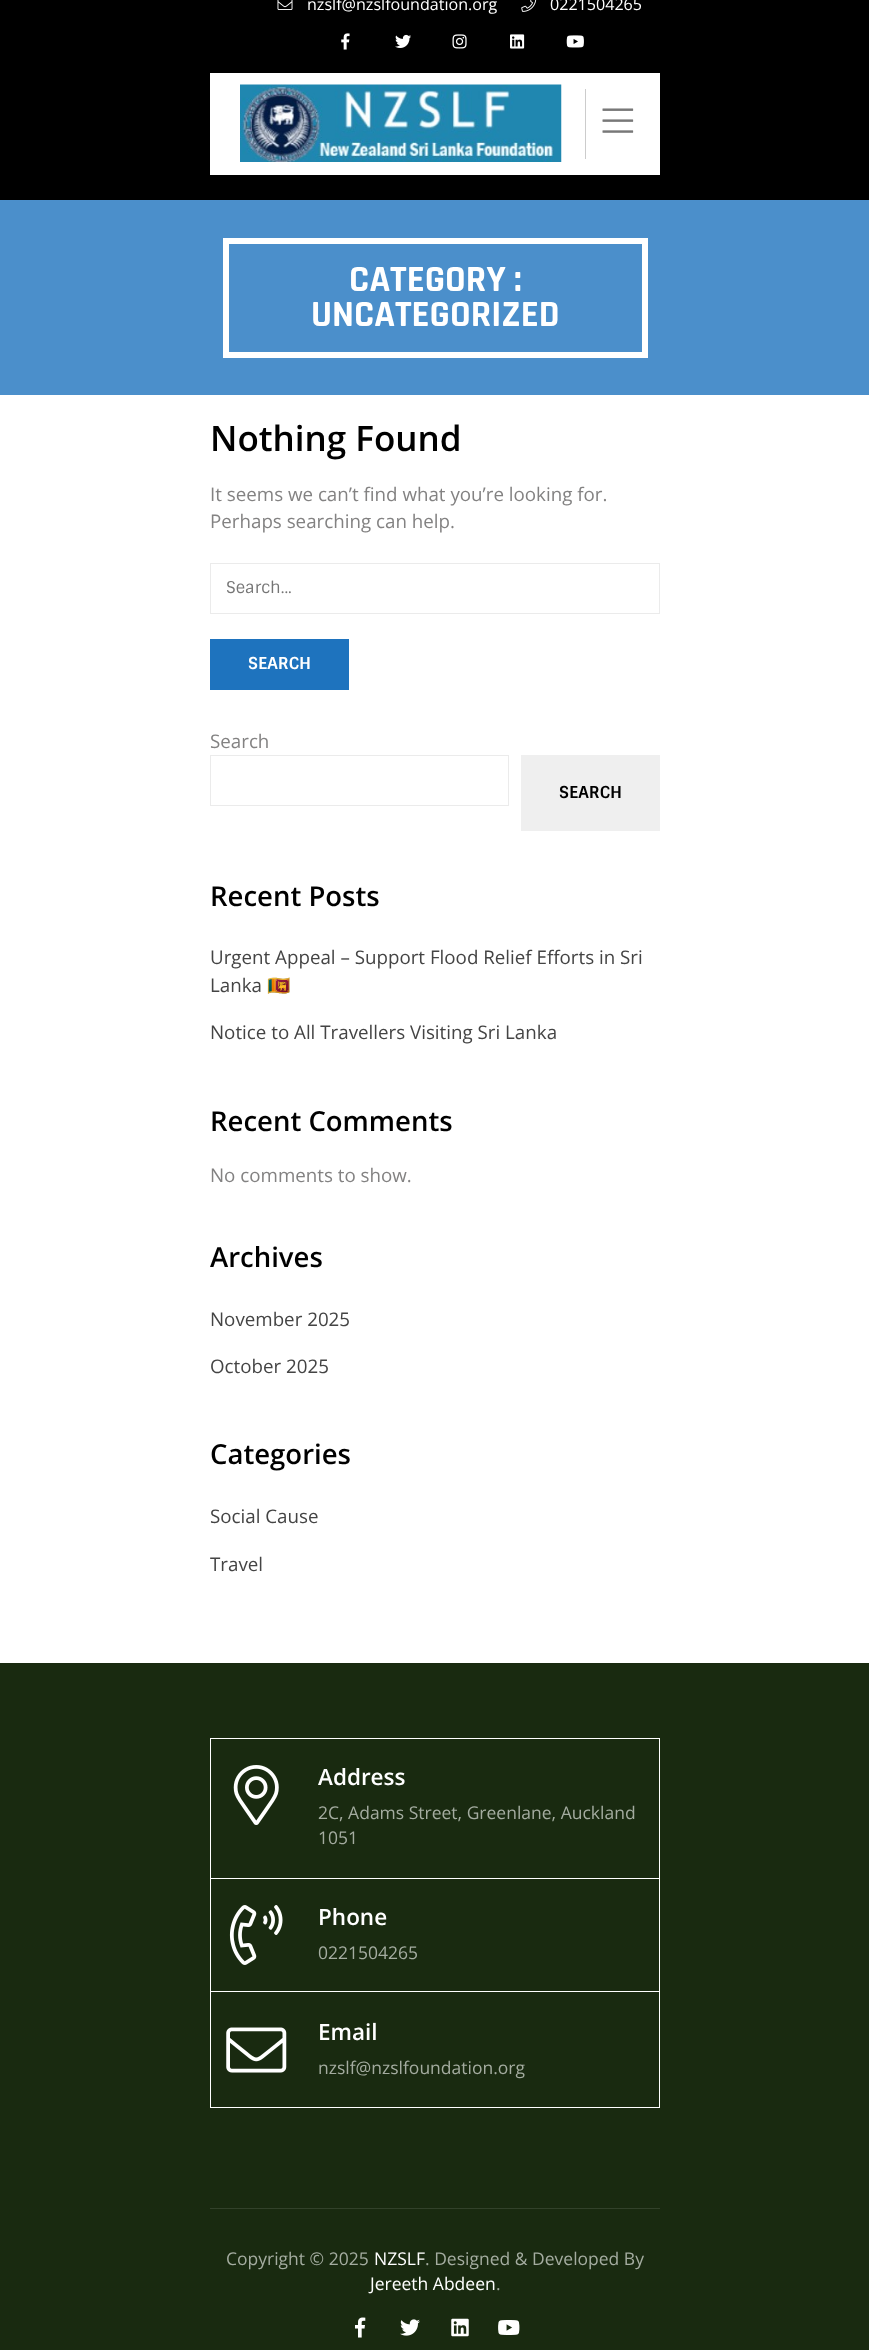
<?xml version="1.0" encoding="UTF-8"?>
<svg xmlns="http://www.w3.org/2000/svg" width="869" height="2350">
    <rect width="100%" height="100%" fill="#FFFFFF"/>
    <rect x="0" y="0" width="869" height="200" fill="#000000"/>
    <image x="277" y="0" width="16" height="10" href="img_01.png"/>
    <text x="307" y="10" font-family="Open Sans" font-size="16.1" fill="#FFFFFF">nzslf@nzslfoundation.org</text>
    <image x="521" y="0" width="16" height="12" href="img_02.png"/>
    <text x="550" y="10" font-family="Open Sans" font-size="16.1" fill="#FFFFFF">0221504265</text>
    <image x="341" y="33" width="9" height="17" href="img_03.png"/>
    <image x="395" y="34" width="16" height="14" href="img_04.png"/>
    <image x="452" y="34" width="15" height="15" href="img_05.png"/>
    <image x="510" y="34" width="15" height="15" href="img_06.png"/>
    <image x="566" y="35" width="18" height="13" href="img_07.png"/>
    <rect x="210" y="73" width="450" height="102" fill="#FFFFFF"/>
    <image x="240" y="84" width="322" height="78" href="img_08.png"/>
    <rect x="585" y="89" width="1" height="70" fill="#CCCCCC"/>
    <image x="602" y="108" width="32" height="25" href="img_09.png"/>
    <rect x="0" y="200" width="869" height="195" fill="#4B8FCB"/>
    <rect x="226" y="241" width="419" height="114" fill="none" stroke="#FFFFFF" stroke-width="6"/>
    <text x="349" y="291" font-family="Rajdhani" font-size="37.5" font-weight="700" fill="#FFFFFF">CATEGORY :</text>
    <text x="311" y="326" font-family="Rajdhani" font-size="37.5" font-weight="700" fill="#FFFFFF">UNCATEGORIZED</text>
    <text x="210" y="451" font-family="Open Sans" font-size="35" font-weight="600" fill="#000000">Nothing Found</text>
    <text font-family="Open Sans" font-size="18.75" fill="#838282">
        <tspan x="210" y="501">It seems we can’t find what you’re looking for.</tspan>
        <tspan x="210" y="528">Perhaps searching can help.</tspan>
    </text>
    <rect x="210.5" y="563.5" width="449" height="50" fill="none" stroke="#EBEBEB"/>
    <text x="226" y="593" font-family="Sintony" font-size="16.25" fill="#757575">Search...</text>
    <rect x="210" y="639" width="139" height="51" fill="#1E73BE"/>
    <text x="248" y="669" font-family="Sintony" font-size="16.5" font-weight="700" fill="#FFFFFF">SEARCH</text>
    <text x="210" y="748" font-family="Open Sans" font-size="18.75" fill="#838282">Search</text>
    <rect x="210.5" y="755.5" width="298" height="50" fill="none" stroke="#EBEBEB"/>
    <rect x="521" y="755" width="139" height="76" fill="#EFEFEF"/>
    <text x="559" y="798" font-family="Sintony" font-size="16.5" font-weight="700" fill="#000000">SEARCH</text>
    <text x="210" y="906" font-family="Open Sans" font-size="27.5" font-weight="600" fill="#000000">Recent Posts</text>
    <text font-family="Open Sans" font-size="18.75" fill="#444444">
        <tspan x="210" y="964">Urgent Appeal – Support Flood Relief Efforts in Sri</tspan>
        <tspan x="210" y="992">Lanka</tspan>
    </text>
    <text x="267" y="992" font-family="Noto Color Emoji" font-size="18.75" fill="#444444">🇱🇰</text>
    <text x="210" y="1039" font-family="Open Sans" font-size="18.75" fill="#444444">Notice to All Travellers Visiting Sri Lanka</text>
    <text x="210" y="1131" font-family="Open Sans" font-size="27.5" font-weight="600" fill="#000000">Recent Comments</text>
    <text x="210" y="1182" font-family="Open Sans" font-size="18.75" fill="#838282">No comments to show.</text>
    <text x="210" y="1267" font-family="Open Sans" font-size="27.5" font-weight="600" fill="#000000">Archives</text>
    <text x="210" y="1326" font-family="Open Sans" font-size="18.75" fill="#444444">November 2025</text>
    <text x="210" y="1373" font-family="Open Sans" font-size="18.75" fill="#444444">October 2025</text>
    <text x="210" y="1464" font-family="Open Sans" font-size="27.5" font-weight="600" fill="#000000">Categories</text>
    <text x="210" y="1523" font-family="Open Sans" font-size="18.75" fill="#444444">Social Cause</text>
    <text x="210" y="1571" font-family="Open Sans" font-size="18.75" fill="#444444">Travel</text>
    <rect x="0" y="1663" width="869" height="687" fill="#192A10"/>
    <rect x="210.5" y="1738.5" width="449" height="369" fill="none" stroke="#FFFFFF"/>
    <image x="233" y="1765" width="46" height="60" href="img_10.png"/>
    <text x="318" y="1785" font-family="Open Sans" font-size="22.5" font-weight="600" fill="#FFFFFF">Address</text>
    <text font-family="Open Sans" font-size="17.5" fill="#A4ACA0">
        <tspan x="318" y="1819">2C, Adams Street, Greenlane, Auckland</tspan>
        <tspan x="318" y="1844">1051</tspan>
    </text>
    <rect x="211" y="1878" width="448" height="1" fill="#FFFFFF"/>
    <image x="229" y="1905" width="54" height="60" href="img_11.png"/>
    <text x="318" y="1925" font-family="Open Sans" font-size="22.5" font-weight="600" fill="#FFFFFF">Phone</text>
    <text x="318" y="1959" font-family="Open Sans" font-size="17.5" fill="#A4ACA0">0221504265</text>
    <rect x="211" y="1991" width="448" height="1" fill="#FFFFFF"/>
    <image x="226" y="2027" width="61" height="46" href="img_12.png"/>
    <text x="318" y="2040" font-family="Open Sans" font-size="22.5" font-weight="600" fill="#FFFFFF">Email</text>
    <text x="318" y="2074" font-family="Open Sans" font-size="17.5" fill="#A4ACA0">nzslf@nzslfoundation.org</text>
    <rect x="210" y="2208" width="450" height="1" fill="#32412A"/>
    <text x="226" y="2265" font-family="Open Sans" font-size="17.5" fill="#A4ACA0">Copyright © 2025</text>
    <text x="374" y="2265" font-family="Open Sans" font-size="17.5" fill="#FFFFFF">NZSLF</text>
    <text x="425" y="2265" font-family="Open Sans" font-size="17.5" fill="#A4ACA0">. Designed &amp; Developed By</text>
    <text x="370" y="2290" font-family="Open Sans" font-size="17.5" fill="#FFFFFF">Jereeth Abdeen</text>
    <text x="496" y="2290" font-family="Open Sans" font-size="17.5" fill="#A4ACA0">.</text>
    <image x="355" y="2317" width="11" height="21" href="img_13.png"/>
    <image x="400" y="2319" width="20" height="17" href="img_14.png"/>
    <image x="451" y="2318" width="18" height="19" href="img_15.png"/>
    <image x="498" y="2320" width="22" height="15" href="img_16.png"/>
</svg>
